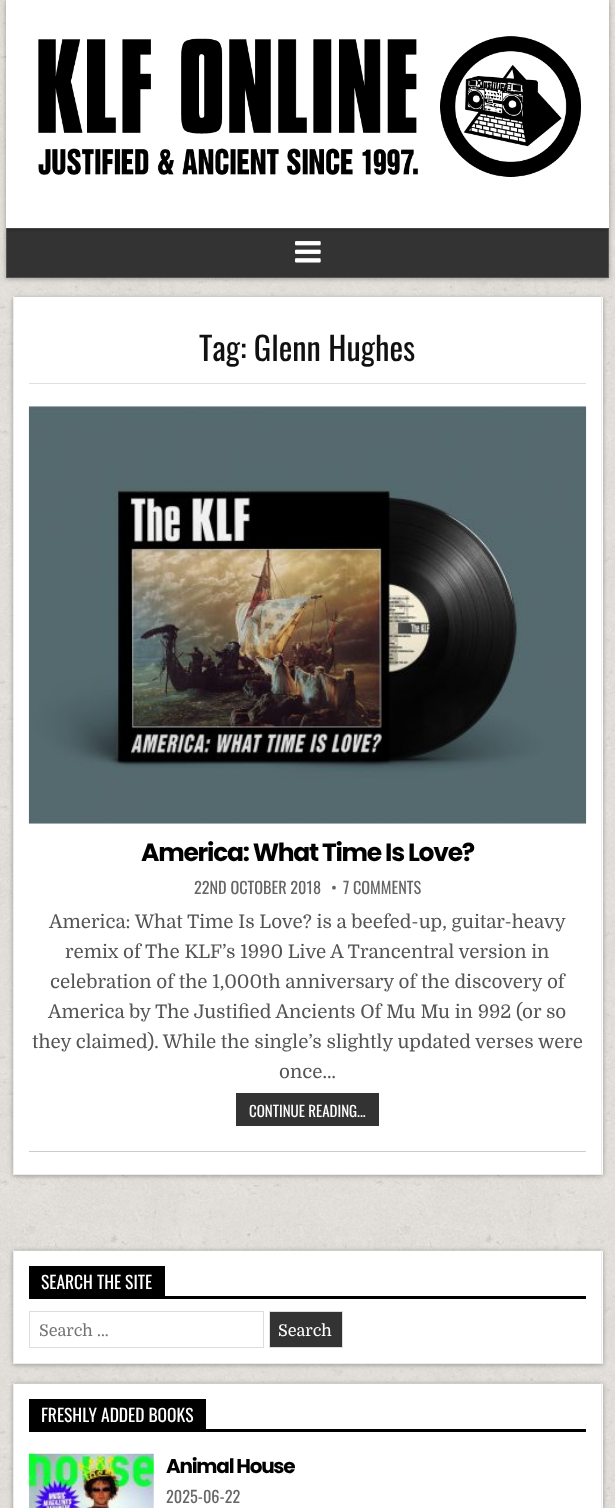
<?xml version="1.0" encoding="UTF-8"?>
<svg xmlns="http://www.w3.org/2000/svg" width="615" height="1508">
    <defs>
        <filter id="blur1" x="-50%" y="-200%" width="200%" height="500%"><feGaussianBlur stdDeviation="2.5"/></filter>
    </defs>
    <rect width="100%" height="100%" fill="#FFFFFF"/>
    <image x="0" y="0" width="615" height="1508" href="img_01.png"/>
    <rect x="6" y="229" width="603" height="50" fill="#000000" fill-opacity="0.3" filter="url(#blur1)"/>
    <rect x="6.5" y="228.5" width="602" height="49" fill="#333333" stroke="#555555"/>
    <rect x="6" y="1" width="603" height="228" fill="#000000" fill-opacity="0.3" filter="url(#blur1)"/>
    <rect x="6" y="0" width="603" height="228" fill="#FFFFFF"/>
    <image x="38" y="36" width="543" height="141" href="img_02.png"/>
    <image x="295" y="241" width="26" height="22" href="img_03.png"/>
    <rect x="13" y="298" width="590" height="878" fill="#000000" fill-opacity="0.3" filter="url(#blur1)"/>
    <rect x="14" y="297" width="589" height="877" fill="#FFFFFF"/>
    <rect x="13" y="296" width="590" height="1" fill="#CCCCCC"/>
    <rect x="601" y="296" width="1" height="879" fill="#ECECEC"/>
    <rect x="13" y="1174" width="590" height="1" fill="#ECECEC"/>
    <rect x="13" y="296" width="1" height="879" fill="#ECECEC"/>
    <rect x="29" y="383" width="557" height="1" fill="#DFDFDF"/>
    <text x="199" y="361" font-family="Oswald" font-size="32.5" fill="#111111">Tag: Glenn Hughes</text>
    <rect x="29" y="1151" width="557" height="1" fill="#CCCCCC"/>
    <image x="28" y="406" width="559" height="418" href="img_04.png"/>
    <text x="141" y="861" font-family="Poppins" font-size="25" font-weight="700" letter-spacing="-1.25" fill="#000000">America: What Time Is Love?</text>
    <text x="194" y="894" font-family="Oswald" font-size="16.25" fill="#666666">22ND OCTOBER 2018</text>
    <text x="331" y="894" font-family="Oswald" font-size="16.25" fill="#666666">•</text>
    <text x="343" y="894" font-family="Oswald" font-size="16.25" fill="#666666">7 COMMENTS</text>
    <text x="49" y="928" font-family="Domine" font-size="18.75" fill="#555555">America: What Time Is Love? is a beefed-up, guitar-heavy</text>
    <text x="65" y="958" font-family="Domine" font-size="18.75" fill="#555555">remix of The KLF’s 1990 Live A Trancentral version in</text>
    <text x="50" y="988" font-family="Domine" font-size="18.75" fill="#555555">celebration of the 1,000th anniversary of the discovery of</text>
    <text x="48" y="1018" font-family="Domine" font-size="18.75" fill="#555555">America by The Justified Ancients Of Mu Mu in 992 (or so</text>
    <text x="32" y="1048" font-family="Domine" font-size="18.75" fill="#555555">they claimed). While the single’s slightly updated verses were</text>
    <text x="279" y="1078" font-family="Domine" font-size="18.75" fill="#555555">once…</text>
    <rect x="236" y="1093" width="143" height="33" fill="#333333"/>
    <text x="249" y="1117" font-family="Oswald" font-size="15" fill="#FFFFFF">CONTINUE READING...</text>
    <rect x="13" y="1251" width="590" height="114" fill="#000000" fill-opacity="0.3" filter="url(#blur1)"/>
    <rect x="14" y="1251" width="589" height="112" fill="#FFFFFF"/>
    <rect x="13" y="1250" width="590" height="1" fill="#CCCCCC"/>
    <rect x="601" y="1250" width="1" height="114" fill="#ECECEC"/>
    <rect x="13" y="1363" width="590" height="1" fill="#ECECEC"/>
    <rect x="13" y="1250" width="1" height="114" fill="#ECECEC"/>
    <rect x="29" y="1296" width="557" height="3" fill="#000000"/>
    <rect x="29" y="1266" width="136" height="30" fill="#000000"/>
    <text x="41" y="1289" font-family="Oswald" font-size="17.5" fill="#FFFFFF">SEARCH THE SITE</text>
    <rect x="29.5" y="1311.5" width="234" height="36" fill="none" stroke="#DDDDDD"/>
    <text x="39" y="1336" font-family="Domine" font-size="16.25" fill="#757575">Search …</text>
    <rect x="269.5" y="1311.5" width="73" height="36" fill="#333333" stroke="#DDDDDD"/>
    <text x="278" y="1336" font-family="Domine" font-size="16.25" fill="#FFFFFF">Search</text>
    <rect x="13" y="1384" width="590" height="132" fill="#000000" fill-opacity="0.3" filter="url(#blur1)"/>
    <rect x="14" y="1384" width="589" height="124" fill="#FFFFFF"/>
    <rect x="13" y="1383" width="590" height="1" fill="#CCCCCC"/>
    <rect x="601" y="1383" width="1" height="125" fill="#ECECEC"/>
    <rect x="13" y="1383" width="1" height="125" fill="#ECECEC"/>
    <rect x="29" y="1429" width="557" height="3" fill="#000000"/>
    <rect x="29" y="1399" width="177" height="30" fill="#000000"/>
    <text x="41" y="1422" font-family="Oswald" font-size="17.5" fill="#FFFFFF">FRESHLY ADDED BOOKS</text>
    <image x="28" y="1453" width="126" height="55" href="img_05.png"/>
    <text x="166" y="1473" font-family="Poppins" font-size="20" font-weight="700" letter-spacing="-1.25" fill="#000000">Animal House</text>
    <text x="166" y="1503" font-family="Oswald" font-size="16.25" fill="#666666">2025-06-22</text>
</svg>
